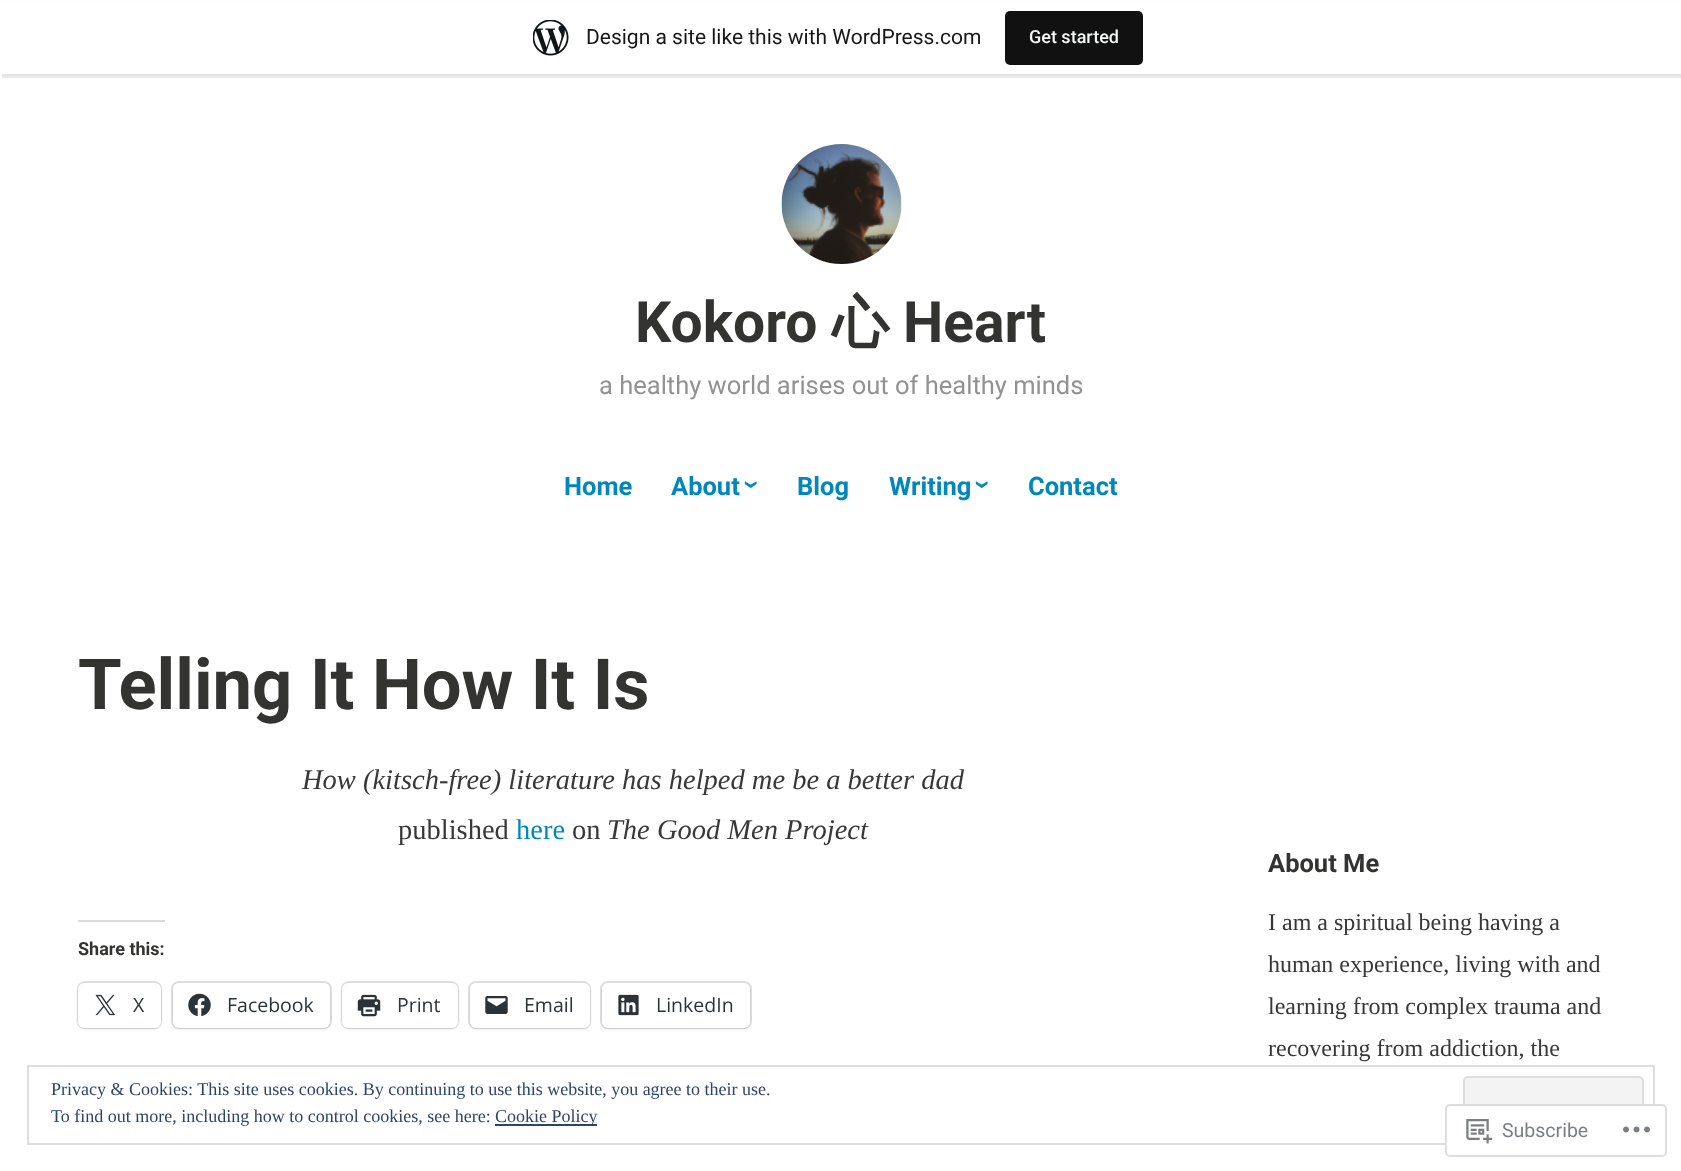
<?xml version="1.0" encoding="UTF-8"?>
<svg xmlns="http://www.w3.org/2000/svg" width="1681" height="1171">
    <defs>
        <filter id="blur1" x="-50%" y="-200%" width="200%" height="500%"><feGaussianBlur stdDeviation="1.5"/></filter>
    </defs>
    <rect width="100%" height="100%" fill="#FFFFFF"/>
    <rect x="0" y="2" width="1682" height="73" fill="#000000" fill-opacity="0.05" filter="url(#blur1)"/>
    <path d="M 2 74 V 78 H 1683 V 5 H 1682 V 74 Z" fill="#000000" fill-opacity="0.08"/>
    <rect x="0" y="1" width="1681" height="73" fill="#FFFFFF"/>
    <image x="533" y="20" width="36" height="36" href="img_01.png"/>
    <text x="586" y="44" font-family="Roboto" font-size="21" fill="#171717">Design a site like this with WordPress.com</text>
    <rect x="1005" y="11" width="138" height="54" rx="5" fill="#111111"/>
    <text x="1029" y="43" font-family="Roboto" font-size="18" font-weight="500" fill="#F6F7F7">Get started</text>
    <image x="781" y="144" width="121" height="120" href="img_02.png"/>
    <text x="635" y="342" font-family="Roboto" font-size="57" font-weight="700" fill="#333332">Kokoro</text>
    <text x="832" y="342" font-family="WenQuanYi Zen Hei" font-size="57" font-weight="700" fill="#333332">心</text>
    <text x="903" y="342" font-family="Roboto" font-size="57" font-weight="700" fill="#333332">Heart</text>
    <text x="599" y="394" font-family="Roboto" font-size="25.5" fill="#929292">a healthy world arises out of healthy minds</text>
    <text x="564" y="495" font-family="Roboto" font-size="25.5" font-weight="700" fill="#0087BE">Home</text>
    <text x="671" y="495" font-family="Roboto" font-size="25.5" font-weight="700" fill="#0087BE">About</text>
    <text x="743" y="480" transform="rotate(90 743 480)" font-family="Roboto" font-size="30" font-weight="700" fill="#0087BE">›</text>
    <text x="797" y="495" font-family="Roboto" font-size="25.5" font-weight="700" fill="#0087BE">Blog</text>
    <text x="889" y="495" font-family="Roboto" font-size="25.5" font-weight="700" fill="#0087BE">Writing</text>
    <text x="974" y="480" transform="rotate(90 974 480)" font-family="Roboto" font-size="30" font-weight="700" fill="#0087BE">›</text>
    <text x="1028" y="495" font-family="Roboto" font-size="25.5" font-weight="700" fill="#0087BE">Contact</text>
    <text x="78" y="709" font-family="Roboto" font-size="70.5" font-weight="700" fill="#333332">Telling It How It Is</text>
    <text x="302" y="789" font-family="Liberation Serif" font-size="28.5" font-style="italic" fill="#383838">How (kitsch-free) literature has helped me be a better dad</text>
    <text x="398" y="839" font-family="Liberation Serif" font-size="28.5" fill="#383838">published</text>
    <text x="516" y="839" font-family="Liberation Serif" font-size="28.5" fill="#0087BE">here</text>
    <text x="572" y="839" font-family="Liberation Serif" font-size="28.5" fill="#383838">on</text>
    <text x="607" y="839" font-family="Liberation Serif" font-size="28.5" font-style="italic" fill="#383838">The Good Men Project</text>
    <rect x="78" y="920" width="87" height="2" fill="#DCDCDE"/>
    <text x="78" y="955" font-family="Roboto" font-size="18" font-weight="700" fill="#333332">Share this:</text>
    <rect x="78" y="982" width="83" height="46" rx="7" fill="none" stroke="#E0E0E0" stroke-width="2"/>
    <rect x="78" y="984" width="83" height="45" rx="6" fill="#000000" fill-opacity="0.12" filter="url(#blur1)"/>
    <rect x="78" y="983" width="83" height="45" rx="6" fill="#FFFFFF"/>
    <image x="95" y="994" width="21" height="22" href="img_03.png"/>
    <text x="133" y="1012" font-family="Open Sans" font-size="19.5" fill="#2C3338">X</text>
    <rect x="172" y="982" width="159" height="46" rx="7" fill="none" stroke="#E0E0E0" stroke-width="2"/>
    <rect x="173" y="984" width="157" height="45" rx="6" fill="#000000" fill-opacity="0.12" filter="url(#blur1)"/>
    <rect x="173" y="983" width="157" height="45" rx="6" fill="#FFFFFF"/>
    <image x="188" y="993" width="23" height="24" href="img_04.png"/>
    <text x="227" y="1012" font-family="Open Sans" font-size="19.5" fill="#2C3338">Facebook</text>
    <rect x="342" y="982" width="116" height="46" rx="7" fill="none" stroke="#E0E0E0" stroke-width="2"/>
    <rect x="342" y="984" width="116" height="45" rx="6" fill="#000000" fill-opacity="0.12" filter="url(#blur1)"/>
    <rect x="342" y="983" width="116" height="45" rx="6" fill="#FFFFFF"/>
    <image x="357" y="994" width="24" height="23" href="img_05.png"/>
    <text x="397" y="1012" font-family="Open Sans" font-size="19.5" fill="#2C3338">Print</text>
    <rect x="469" y="982" width="121" height="46" rx="7" fill="none" stroke="#E0E0E0" stroke-width="2"/>
    <rect x="470" y="984" width="120" height="45" rx="6" fill="#000000" fill-opacity="0.12" filter="url(#blur1)"/>
    <rect x="470" y="983" width="120" height="45" rx="6" fill="#FFFFFF"/>
    <image x="485" y="996" width="23" height="18" href="img_06.png"/>
    <text x="524" y="1012" font-family="Open Sans" font-size="19.5" fill="#2C3338">Email</text>
    <rect x="601" y="982" width="150" height="46" rx="7" fill="none" stroke="#E0E0E0" stroke-width="2"/>
    <rect x="602" y="984" width="148" height="45" rx="6" fill="#000000" fill-opacity="0.12" filter="url(#blur1)"/>
    <rect x="602" y="983" width="148" height="45" rx="6" fill="#FFFFFF"/>
    <image x="618" y="994" width="21" height="22" href="img_07.png"/>
    <text x="656" y="1012" font-family="Open Sans" font-size="19.5" fill="#2C3338">LinkedIn</text>
    <text x="1268" y="872" font-family="Roboto" font-size="25.5" font-weight="700" fill="#333332">About Me</text>
    <text font-family="Liberation Serif" font-size="24" fill="#383838">
        <tspan x="1268" y="930">I am a spiritual being having a</tspan>
        <tspan x="1268" y="972">human experience, living with and</tspan>
        <tspan x="1268" y="1014">learning from complex trauma and</tspan>
        <tspan x="1268" y="1056">recovering from addiction, the</tspan>
    </text>
    <rect x="28" y="1066" width="1626" height="78" fill="none" stroke="#DEDEDE" stroke-width="2"/>
    <text x="51" y="1095" font-family="Liberation Serif" font-size="18" fill="#2E4467">Privacy &amp; Cookies: This site uses cookies. By continuing to use this website, you agree to their use.</text>
    <rect x="1464" y="1077" width="179" height="56" rx="4" fill="#F3F3F3" stroke="#DEDEDE" stroke-width="2"/>
    <text x="51" y="1122" font-family="Liberation Serif" font-size="18" fill="#2E4467">To find out more, including how to control cookies, see here:</text>
    <rect x="495" y="1124" width="102" height="2" fill="#2E4467"/>
    <text x="495" y="1122" font-family="Liberation Serif" font-size="18" fill="#2E4467">Cookie Policy</text>
    <rect x="1445" y="1104" width="222" height="53" rx="5" fill="#FFFFFF" fill-opacity="0.98"/>
    <rect x="1446" y="1105" width="220" height="51" rx="4" fill="none" stroke="#DCDCDE" stroke-opacity="0.98" stroke-width="2"/>
    <image x="1466" y="1119" width="27" height="25" href="img_08.png"/>
    <text x="1502" y="1137" font-family="Roboto" font-size="19.5" fill="#7B7F84">Subscribe</text>
    <image x="1623" y="1126" width="27" height="7" href="img_09.png"/>
</svg>
